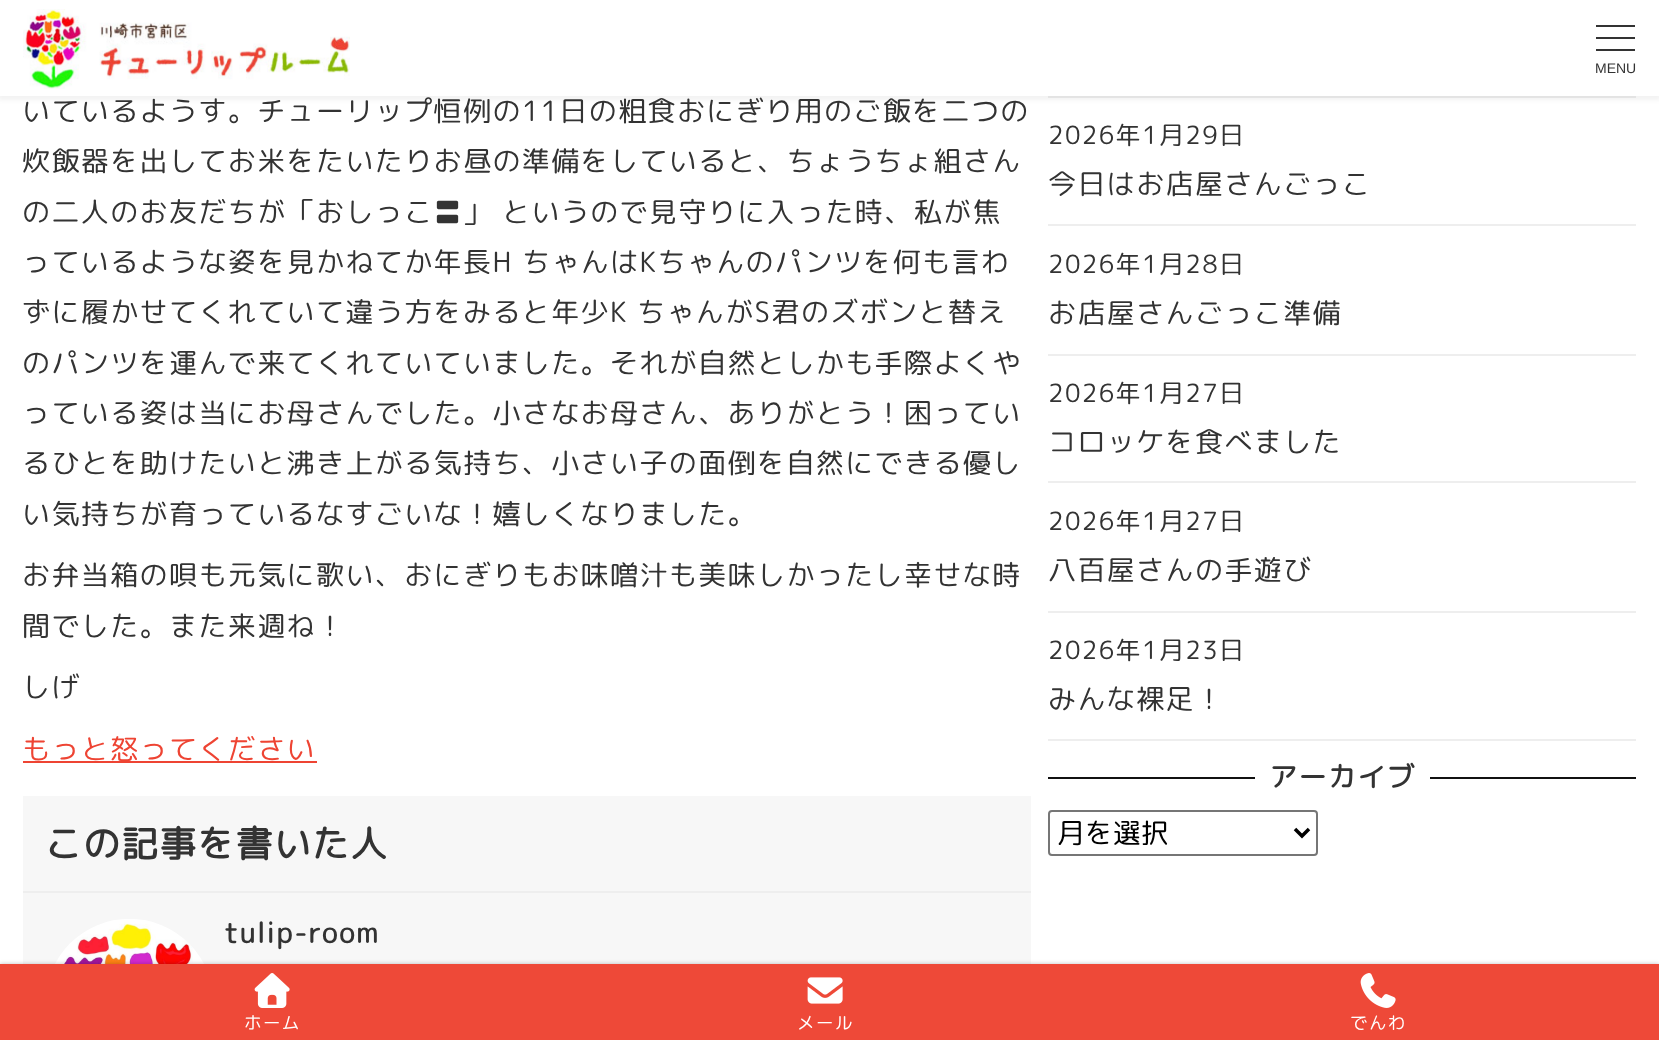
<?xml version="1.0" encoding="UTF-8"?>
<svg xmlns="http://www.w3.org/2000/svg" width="1659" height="1040">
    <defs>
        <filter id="blur1" x="-50%" y="-200%" width="200%" height="500%"><feGaussianBlur stdDeviation="2"/></filter>
    </defs>
    <rect width="100%" height="100%" fill="#FFFFFF"/>
    <rect x="1048" y="96" width="588" height="2" fill="#EEEEEE"/>
    <rect x="-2" y="0" width="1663" height="100" fill="#000000" fill-opacity="0.05" filter="url(#blur1)"/>
    <rect x="0" y="0" width="1659" height="96" fill="#FFFFFF"/>
    <image x="23" y="9" width="327" height="80" href="img_01.png"/>
    <rect x="1596" y="25" width="39" height="2" fill="#333333"/>
    <rect x="1596" y="37" width="39" height="2" fill="#333333"/>
    <rect x="1596" y="49" width="39" height="2" fill="#333333"/>
    <text x="1595" y="73" font-family="Liberation Sans" font-size="14" fill="#333333">MENU</text>
    <text font-family="'Rounded Mplus 1c'" font-size="28" letter-spacing="1.4" fill="#333333">
        <tspan x="22" y="121">いているようす。チューリップ恒例の11日の粗食おにぎり用のご飯を二つの</tspan>
        <tspan x="22" y="171">炊飯器を出してお米をたいたりお昼の準備をしていると、ちょうちょ組さん</tspan>
        <tspan x="22" y="222">の二人のお友だちが「おしっこ〓」</tspan>
    </text>
    <text x="502" y="222" font-family="'Rounded Mplus 1c'" font-size="28" letter-spacing="1.4" fill="#333333">というので見守りに入った時、私が焦</text>
    <text x="22" y="272" font-family="'Rounded Mplus 1c'" font-size="28" letter-spacing="1.4" fill="#333333">っているような姿を見かねてか年長H</text>
    <text x="522" y="272" font-family="'Rounded Mplus 1c'" font-size="28" letter-spacing="1.4" fill="#333333">ちゃんはKちゃんのパンツを何も言わ</text>
    <text x="22" y="322" font-family="'Rounded Mplus 1c'" font-size="28" letter-spacing="1.4" fill="#333333">ずに履かせてくれていて違う方をみると年少K</text>
    <text x="637" y="322" font-family="'Rounded Mplus 1c'" font-size="28" letter-spacing="1.4" fill="#333333">ちゃんがS君のズボンと替え</text>
    <text font-family="'Rounded Mplus 1c'" font-size="28" letter-spacing="1.4" fill="#333333">
        <tspan x="22" y="373">のパンツを運んで来てくれていていました。それが自然としかも手際よくや</tspan>
        <tspan x="22" y="423">っている姿は当にお母さんでした。小さなお母さん、ありがとう！困ってい</tspan>
        <tspan x="22" y="473">るひとを助けたいと沸き上がる気持ち、小さい子の面倒を自然にできる優し</tspan>
        <tspan x="22" y="524">い気持ちが育っているなすごいな！嬉しくなりました。</tspan>
    </text>
    <text font-family="'Rounded Mplus 1c'" font-size="28" letter-spacing="1.4" fill="#333333">
        <tspan x="22" y="585">お弁当箱の唄も元気に歌い、おにぎりもお味噌汁も美味しかったし幸せな時</tspan>
        <tspan x="22" y="636">間でした。また来週ね！</tspan>
    </text>
    <text x="22" y="697" font-family="'Rounded Mplus 1c'" font-size="28" letter-spacing="1.4" fill="#333333">しげ</text>
    <rect x="23" y="761" width="294" height="2" fill="#EE4433"/>
    <text x="22" y="759" font-family="'Rounded Mplus 1c'" font-size="28" letter-spacing="1.4" fill="#EE4433">もっと怒ってください</text>
    <rect x="23" y="796" width="1008" height="168" fill="#F7F7F7"/>
    <rect x="23" y="891" width="1008" height="2" fill="#EEEEEE"/>
    <text x="45" y="857" font-family="'Rounded Mplus 1c'" font-size="36.75" font-weight="700" letter-spacing="1.4" fill="#333333">この記事を書いた人</text>
    <image x="55" y="919" width="149" height="45" href="img_02.png"/>
    <text x="224" y="943" font-family="'Rounded Mplus 1c'" font-size="28" font-weight="700" letter-spacing="1.4" fill="#333333">tulip-room</text>
    <rect x="1048" y="224" width="588" height="2" fill="#EEEEEE"/>
    <text x="1048" y="144" font-family="'Rounded Mplus 1c'" font-size="25" letter-spacing="1.4" fill="#333333">2026年1月29日</text>
    <text x="1048" y="194" font-family="'Rounded Mplus 1c'" font-size="28" letter-spacing="1.4" fill="#333333">今日はお店屋さんごっこ</text>
    <rect x="1048" y="354" width="588" height="2" fill="#EEEEEE"/>
    <text x="1048" y="273" font-family="'Rounded Mplus 1c'" font-size="25" letter-spacing="1.4" fill="#333333">2026年1月28日</text>
    <text x="1048" y="323" font-family="'Rounded Mplus 1c'" font-size="28" letter-spacing="1.4" fill="#333333">お店屋さんごっこ準備</text>
    <rect x="1048" y="481" width="588" height="2" fill="#EEEEEE"/>
    <text x="1048" y="402" font-family="'Rounded Mplus 1c'" font-size="25" letter-spacing="1.4" fill="#333333">2026年1月27日</text>
    <text x="1048" y="452" font-family="'Rounded Mplus 1c'" font-size="28" letter-spacing="1.4" fill="#333333">コロッケを食べました</text>
    <rect x="1048" y="611" width="588" height="2" fill="#EEEEEE"/>
    <text x="1048" y="530" font-family="'Rounded Mplus 1c'" font-size="25" letter-spacing="1.4" fill="#333333">2026年1月27日</text>
    <text x="1048" y="580" font-family="'Rounded Mplus 1c'" font-size="28" letter-spacing="1.4" fill="#333333">八百屋さんの手遊び</text>
    <rect x="1048" y="739" width="588" height="2" fill="#EEEEEE"/>
    <text x="1048" y="659" font-family="'Rounded Mplus 1c'" font-size="25" letter-spacing="1.4" fill="#333333">2026年1月23日</text>
    <text x="1048" y="709" font-family="'Rounded Mplus 1c'" font-size="28" letter-spacing="1.4" fill="#333333">みんな裸足！</text>
    <rect x="1048" y="777" width="207" height="2" fill="#111111"/>
    <text x="1269" y="787" font-family="'Rounded Mplus 1c'" font-size="28" font-weight="700" letter-spacing="1.4" fill="#333333">アーカイブ</text>
    <rect x="1430" y="777" width="206" height="2" fill="#111111"/>
    <rect x="1049" y="811" width="268" height="44" rx="3" fill="none" stroke="#767676" stroke-width="2"/>
    <path d="M 1295 829 L 1302 836 L 1309 829" fill="none" stroke="#000000" stroke-width="3.5"/>
    <text x="1057" y="843" font-family="'Rounded Mplus 1c'" font-size="28" fill="#000000">月を選択</text>
    <rect x="0" y="964" width="1659" height="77" fill="#000000" fill-opacity="0.25" filter="url(#blur1)"/>
    <rect x="0" y="964" width="1659" height="76" fill="#EE4938"/>
    <image x="254" y="973" width="36" height="35" href="img_03.png"/>
    <text x="244" y="1029" font-family="'Rounded Mplus 1c'" font-size="17.5" letter-spacing="1.4" fill="#FFFFFF">ホーム</text>
    <image x="807" y="977" width="36" height="27" href="img_04.png"/>
    <text x="797" y="1029" font-family="'Rounded Mplus 1c'" font-size="17.5" letter-spacing="1.4" fill="#FFFFFF">メール</text>
    <image x="1360" y="973" width="36" height="35" href="img_05.png"/>
    <text x="1350" y="1029" font-family="'Rounded Mplus 1c'" font-size="17.5" letter-spacing="1.4" fill="#FFFFFF">でんわ</text>
</svg>
